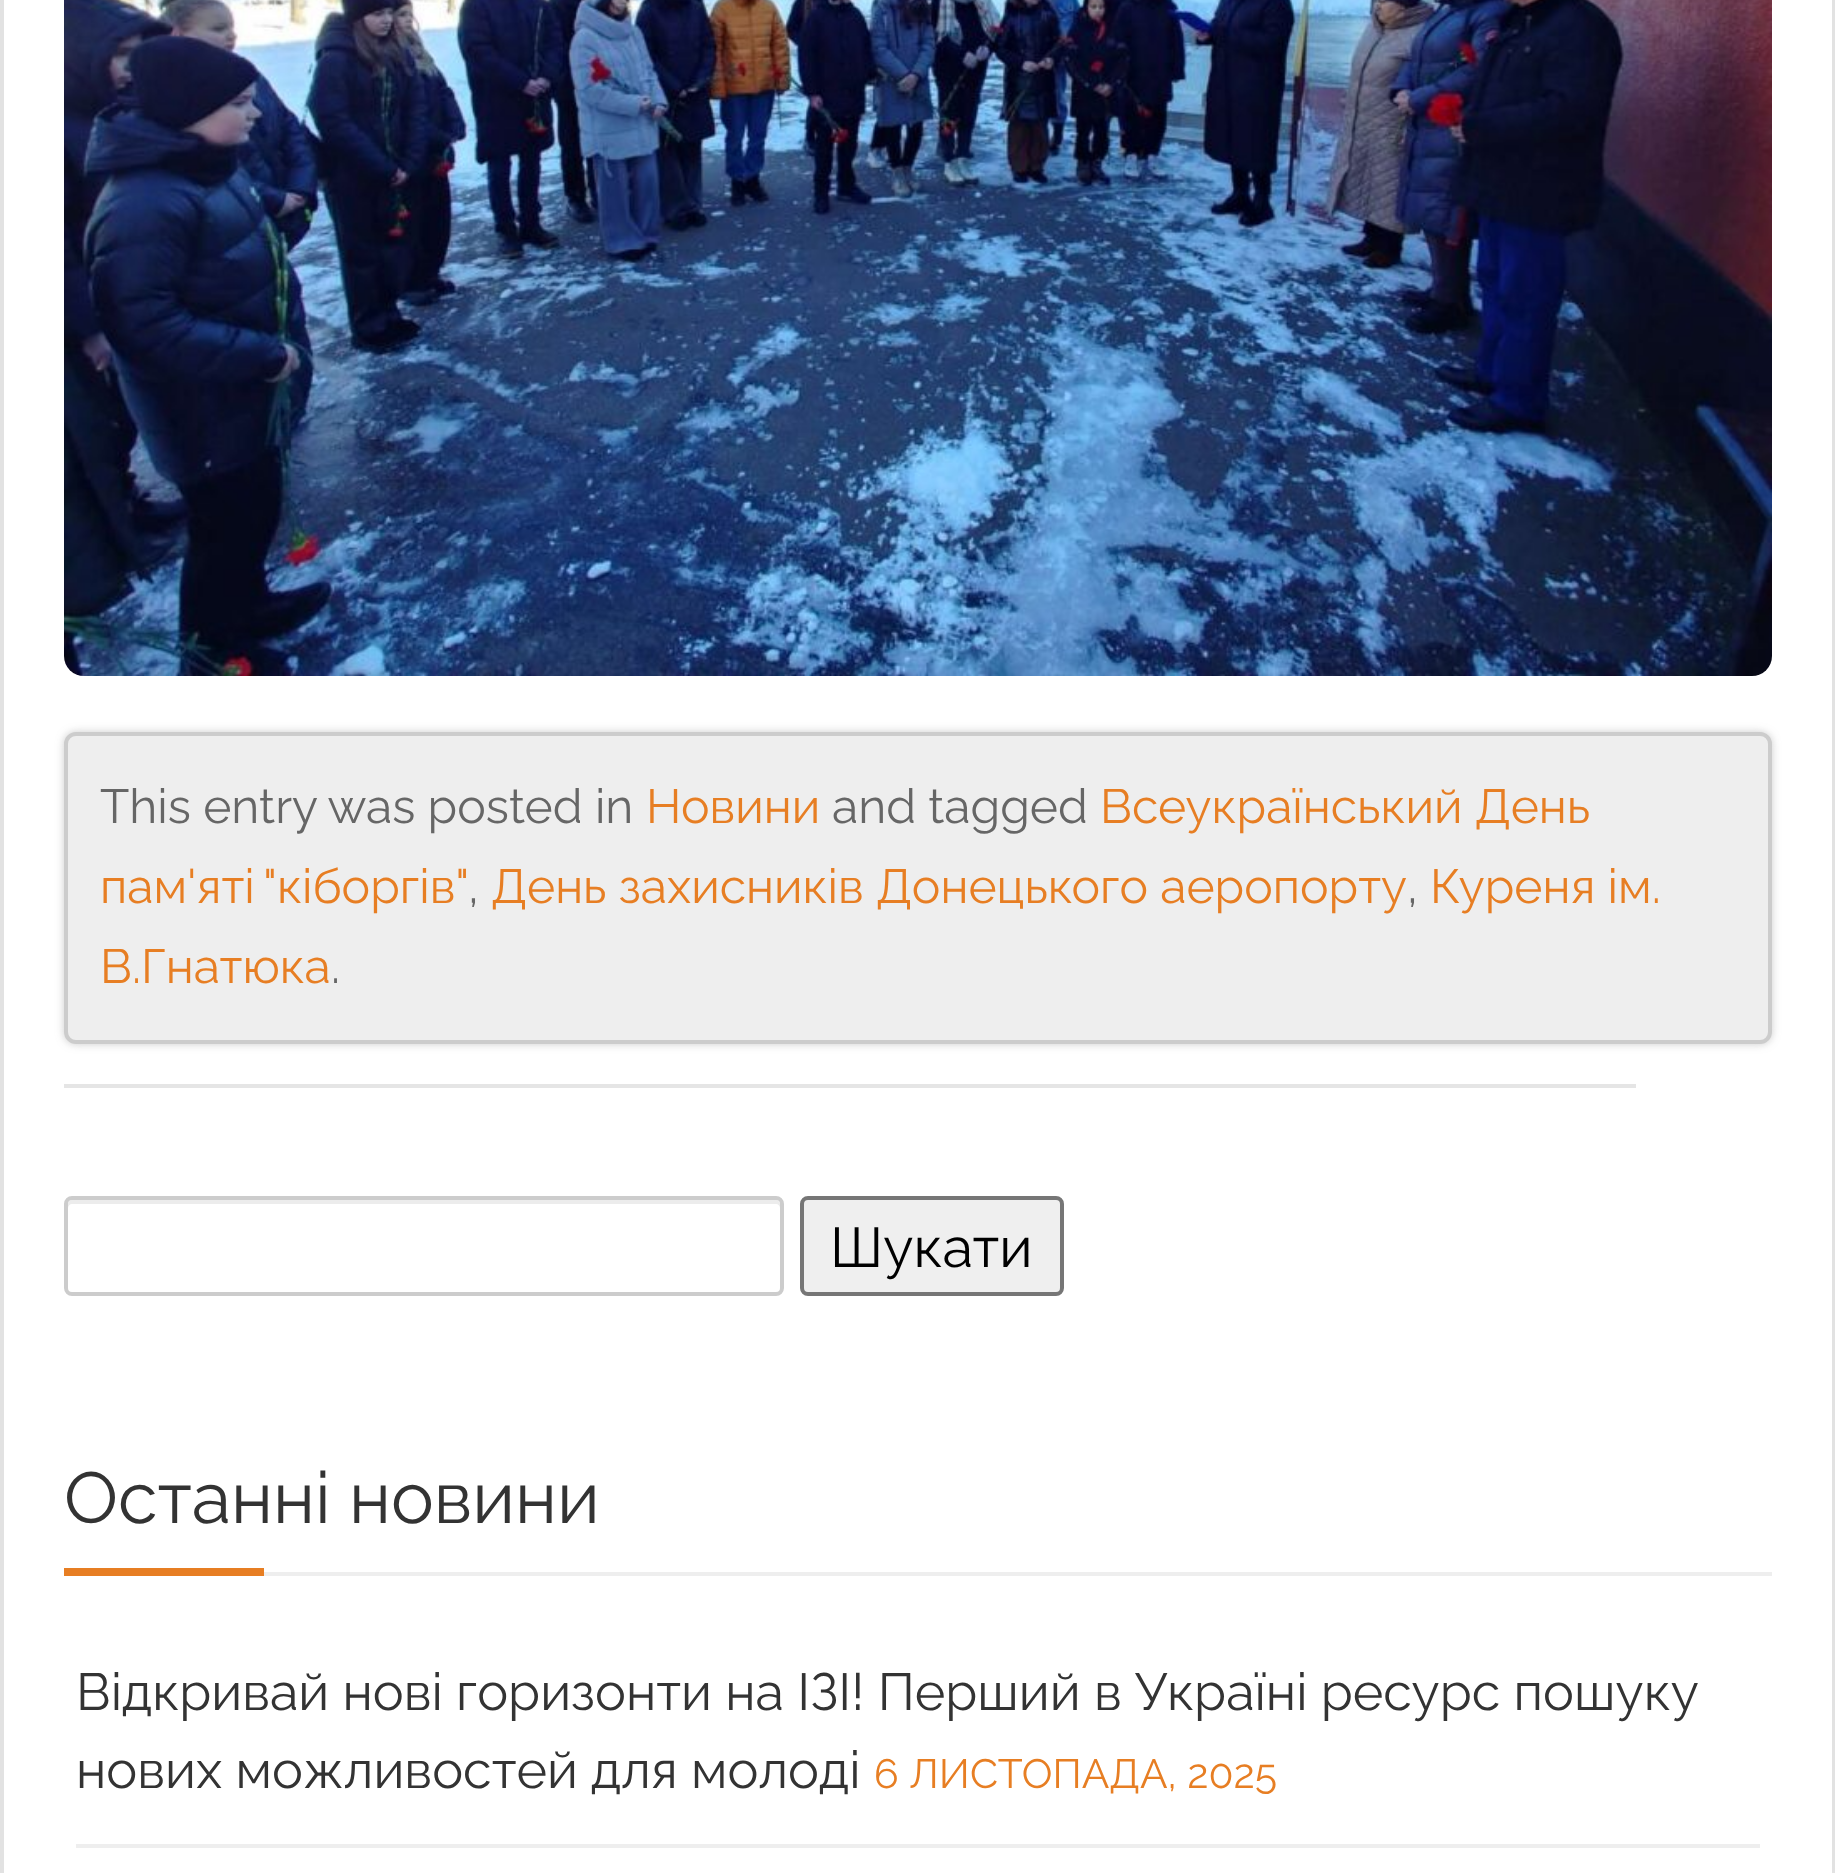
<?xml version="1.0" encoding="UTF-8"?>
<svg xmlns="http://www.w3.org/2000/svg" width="1835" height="1873">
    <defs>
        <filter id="blur1" x="-50%" y="-200%" width="200%" height="500%"><feGaussianBlur stdDeviation="4"/></filter>
    </defs>
    <rect width="100%" height="100%" fill="#FFFFFF"/>
    <rect x="1832" y="0" width="3" height="1873" fill="#E2E2E2"/>
    <rect x="0" y="0" width="4" height="1873" fill="#E2E2E2"/>
    <image x="64" y="0" width="1708" height="676" href="img_01.png"/>
    <rect x="64" y="732" width="1708" height="312" rx="12" fill="#999999" fill-opacity="0.5" filter="url(#blur1)"/>
    <rect x="66" y="734" width="1704" height="308" rx="10" fill="#EEEEEE" stroke="#CCCCCC" stroke-width="4"/>
    <text x="100" y="823" font-family="Raleway" font-size="48" fill="#666666">This entry was posted in</text>
    <text x="646" y="823" font-family="Raleway" font-size="48" fill="#E77E23">Новини</text>
    <text x="832" y="823" font-family="Raleway" font-size="48" fill="#666666">and tagged</text>
    <text x="1100" y="823" font-family="Raleway" font-size="48" fill="#E77E23">Всеукраїнський День</text>
    <text x="100" y="903" word-spacing="-3" font-family="Raleway" font-size="48" fill="#E77E23">пам'яті "кіборгів"</text>
    <text x="468" y="903" font-family="Raleway" font-size="48" fill="#666666">,</text>
    <text x="491" y="903" font-family="Raleway" font-size="48" fill="#E77E23">День захисників Донецького аеропорту</text>
    <text x="1407" y="903" font-family="Raleway" font-size="48" fill="#666666">,</text>
    <text x="1430" y="903" font-family="Raleway" font-size="48" fill="#E77E23">Куреня ім.</text>
    <text x="100" y="983" font-family="Raleway" font-size="48" fill="#E77E23">В.Гнатюка</text>
    <text x="331" y="983" font-family="Raleway" font-size="48" fill="#666666">.</text>
    <rect x="64" y="1084" width="1572" height="4" fill="#E5E5E5"/>
    <path d="M 72 1204 H 776 C 778 1204 780 1206 780 1208 V 1204 C 780 1202 778 1200 776 1200 H 72 C 70 1200 68 1202 68 1204 V 1208 C 68 1206 70 1204 72 1204 Z" fill="#ECECEC"/>
    <rect x="66" y="1198" width="716" height="96" rx="6" fill="none" stroke="#CCCCCC" stroke-width="4"/>
    <rect x="802" y="1198" width="260" height="96" rx="6" fill="#EFEFEF" stroke="#767676" stroke-width="4"/>
    <text x="830" y="1267" font-family="Raleway" font-size="56" fill="#000000">Шукати</text>
    <rect x="264" y="1572" width="1508" height="4" fill="#EEEEEE"/>
    <text x="64" y="1523" font-family="Raleway" font-size="72" fill="#333333">Останні новини</text>
    <rect x="64" y="1568" width="200" height="8" fill="#E77E23"/>
    <rect x="76" y="1844" width="1684" height="4" fill="#EEEEEE"/>
    <text font-family="Raleway" font-size="52" fill="#333333">
        <tspan x="76" y="1710">Відкривай нові горизонти на ІЗІ! Перший в Україні ресурс пошуку</tspan>
        <tspan x="76" y="1788">нових можливостей для молоді</tspan>
    </text>
    <text x="874" y="1788" font-family="Raleway" font-size="40.9" fill="#E77E23">6 ЛИСТОПАДА, 2025</text>
</svg>
